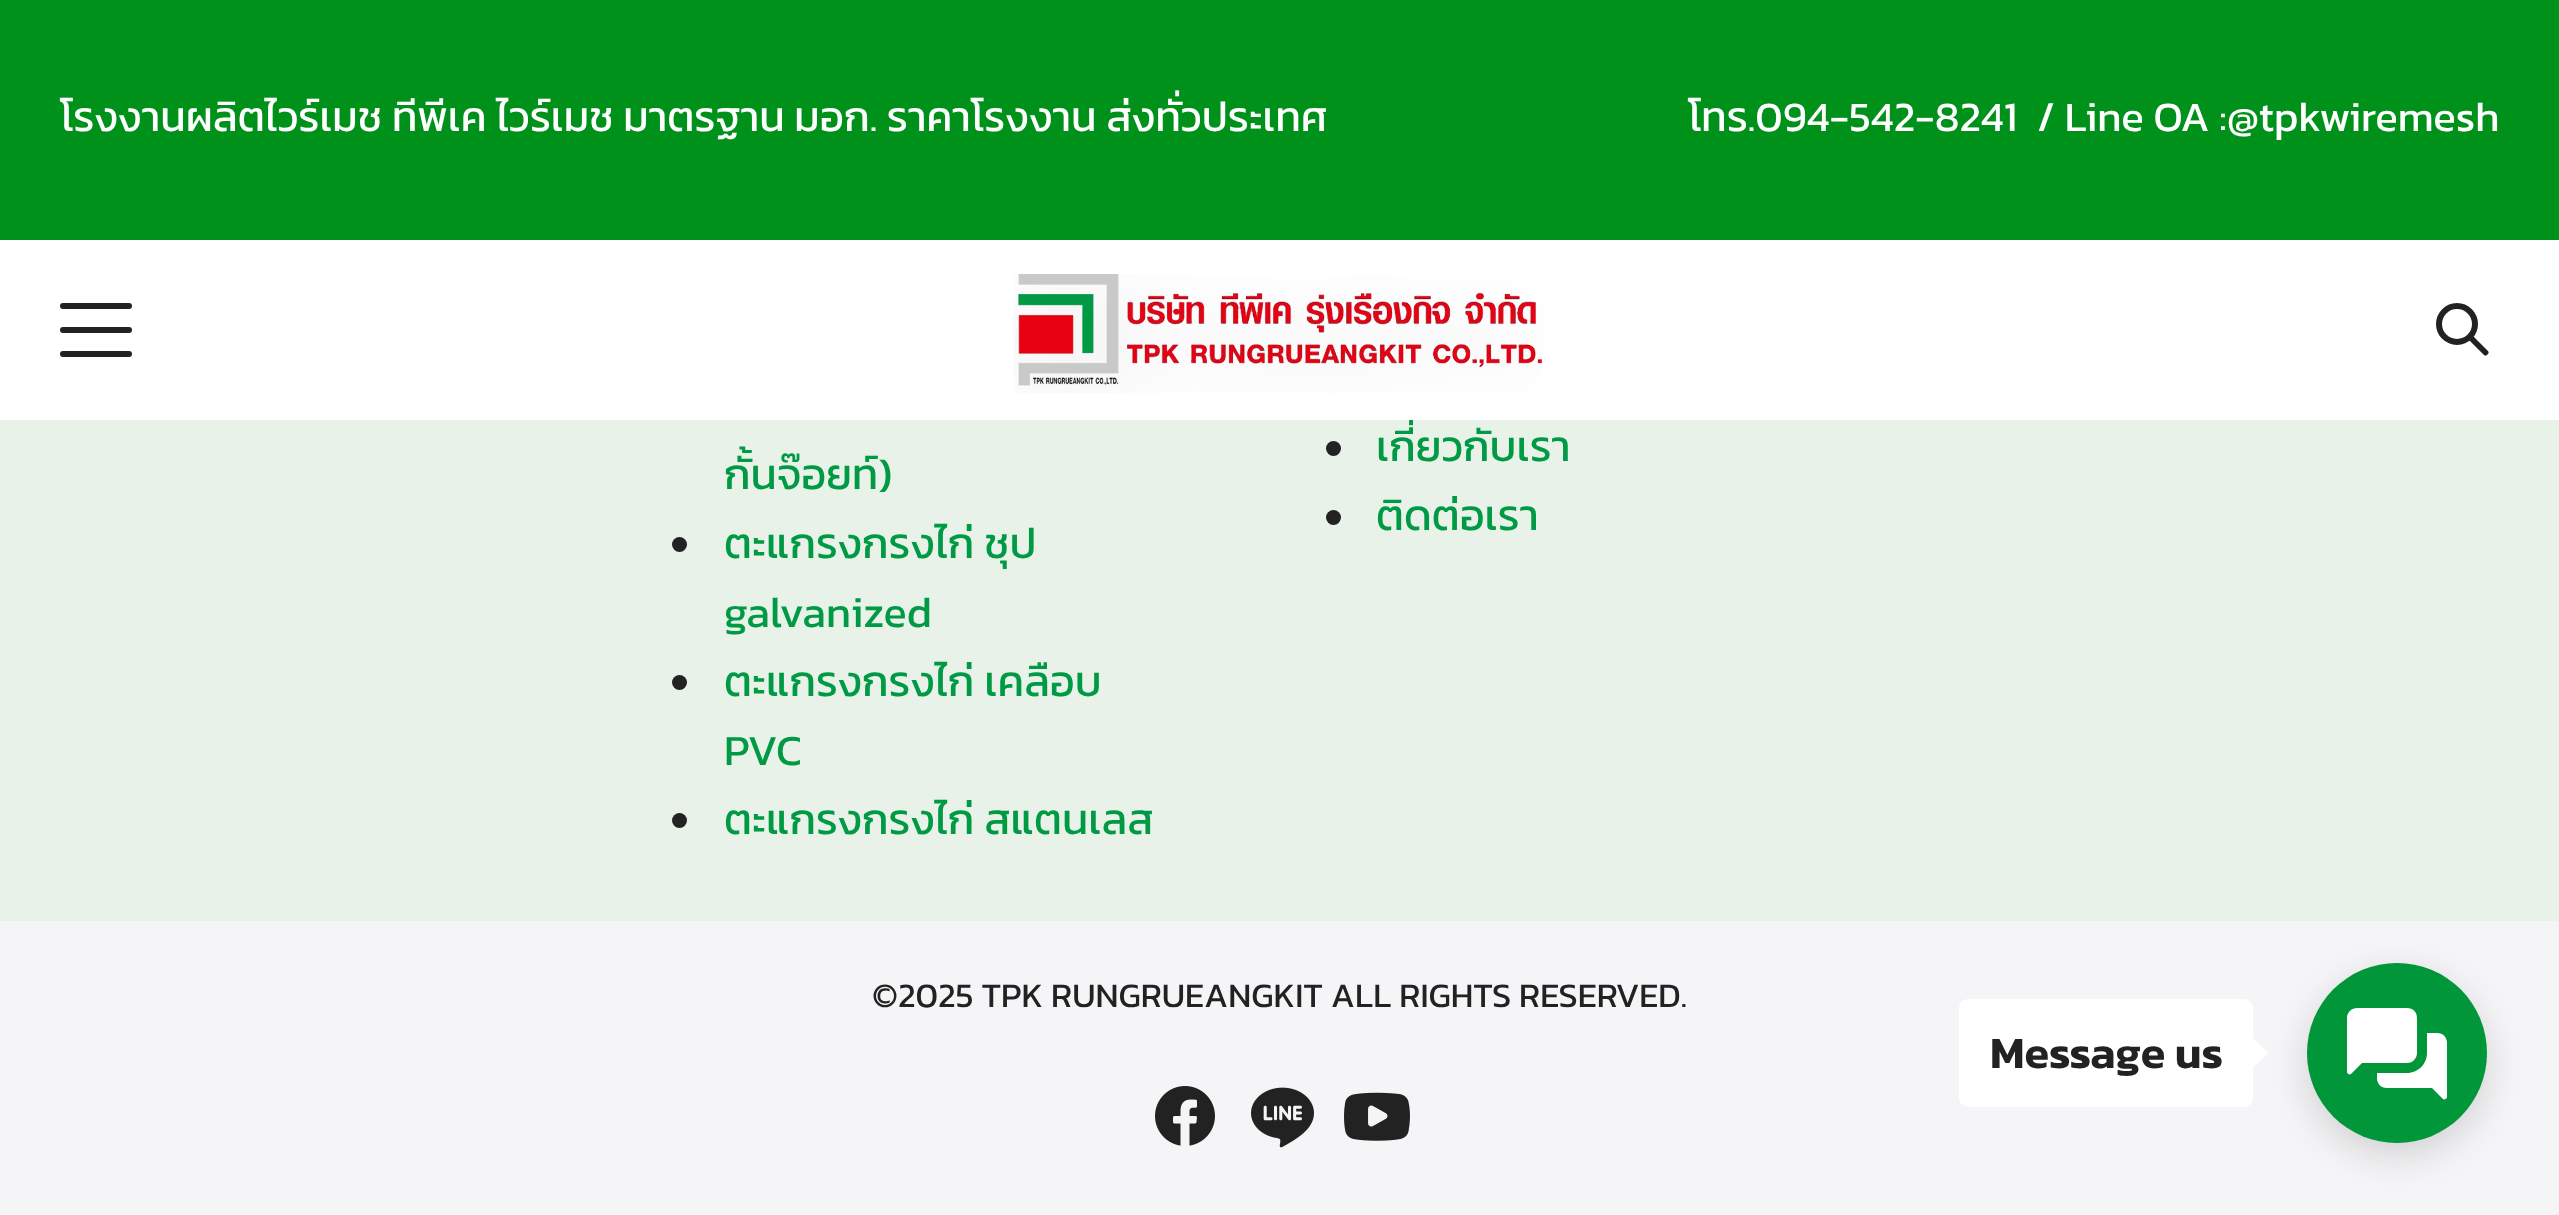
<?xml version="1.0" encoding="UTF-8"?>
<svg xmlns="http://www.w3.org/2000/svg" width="2559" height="1215">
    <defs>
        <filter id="blur1" x="-50%" y="-200%" width="200%" height="500%"><feGaussianBlur stdDeviation="18"/></filter>
    </defs>
    <rect width="100%" height="100%" fill="#F5F5F7"/>
    <rect x="0" y="0" width="2559" height="240" fill="#00911B"/>
    <text x="60" y="131" font-family="Kanit" font-size="42" fill="#FFFFFF">โรงงานผลิตไวร์เมช ทีพีเค ไวร์เมช มาตรฐาน มอก. ราคาโรงงาน ส่งทั่วประเทศ</text>
    <text x="1688" y="131" font-family="Kanit" font-size="42" fill="#FFFFFF">โทร.094-542-8241</text>
    <text x="2037" y="131" font-family="Kanit" font-size="42" fill="#FFFFFF">/ Line OA :@tpkwiremesh</text>
    <rect x="0" y="420" width="2559" height="501" fill="#E8F2E9"/>
    <text x="1376" y="461" font-family="Kanit" font-size="43.25" fill="#009A44">เกี่ยวกับเรา</text>
    <rect x="0" y="240" width="2559" height="180" fill="#FFFFFF"/>
    <rect x="60" y="327" width="72" height="6" rx="3" fill="#222222"/>
    <rect x="60" y="303" width="72" height="6" rx="3" fill="#222222"/>
    <rect x="60" y="351" width="72" height="6" rx="3" fill="#222222"/>
    <image x="1014" y="274" width="529" height="119" href="img_01.png"/>
    <path d="M 2470 337 C 2471 335.5 2473 335.5 2474 337 L 2487.5 350.5 C 2489 351.5 2489 353.5 2487.5 354.5 C 2486.5 356 2484.5 356 2483.5 354.5 L 2470 341 C 2468.5 340 2468.5 338 2470 337 Z" fill="#222222"/>
    <circle cx="2457" cy="324" r="18" fill="none" stroke="#222222" stroke-width="6"/>
    <text x="724" y="489" font-family="Kanit" font-size="43.25" fill="#009A44">กั้นจ๊อยท์)</text>
    <circle cx="679.5" cy="544.5" r="7.5" fill="#222222"/>
    <text font-family="Kanit" font-size="43.25" fill="#009A44">
        <tspan x="724" y="558">ตะแกรงกรงไก่ ชุป</tspan>
        <tspan x="724" y="627">galvanized</tspan>
    </text>
    <circle cx="679.5" cy="682.5" r="7.5" fill="#222222"/>
    <text font-family="Kanit" font-size="43.25" fill="#009A44">
        <tspan x="724" y="696">ตะแกรงกรงไก่ เคลือบ</tspan>
        <tspan x="724" y="765">PVC</tspan>
    </text>
    <circle cx="679.5" cy="820.5" r="7.5" fill="#222222"/>
    <text x="724" y="834" font-family="Kanit" font-size="43.25" fill="#009A44">ตะแกรงกรงไก่ สแตนเลส</text>
    <circle cx="1333.5" cy="448.5" r="7.5" fill="#222222"/>
    <circle cx="1333.5" cy="517.5" r="7.5" fill="#222222"/>
    <text x="1376" y="530" font-family="Kanit" font-size="43.25" fill="#009A44">ติดต่อเรา</text>
    <text x="872" y="1007" font-family="Kanit" font-size="34.6" fill="#222222">©2025 TPK RUNGRUEANGKIT ALL RIGHTS RESERVED.</text>
    <image x="1155" y="1086" width="60" height="60" href="img_02.png"/>
    <image x="1251" y="1087" width="63" height="61" href="img_03.png"/>
    <image x="1344" y="1092" width="66" height="49" href="img_04.png"/>
    <rect x="2307" y="975" width="180" height="180" rx="90" fill="#000000" fill-opacity="0.15" filter="url(#blur1)"/>
    <circle cx="2397" cy="1053" r="90" fill="#019639"/>
    <rect x="1959" y="999" width="294" height="108" rx="9" fill="#FFFFFF"/>
    <text x="1990" y="1068" font-family="Kanit" font-size="45" font-weight="600" fill="#222222">Message us</text>
    <path d="M 2253 1068 V 1038 L 2268 1053 Z" fill="#FFFFFF"/>
    <path d="M 2357 1008 C 2352 1008 2347 1012 2347 1018 V 1072 C 2347 1074 2350 1075 2351 1074 L 2362 1063 H 2407 C 2413 1063 2417 1058 2417 1053 V 1018 C 2417 1012 2413 1008 2407 1008 Z M 2427 1033 V 1053 C 2427 1064 2418 1073 2407 1073 H 2377 V 1078 C 2377 1084 2381 1088 2387 1088 H 2432 L 2443 1099 C 2444 1100 2447 1099 2447 1097 V 1043 C 2447 1037 2443 1033 2437 1033 Z" fill="#FFFFFF"/>
</svg>
